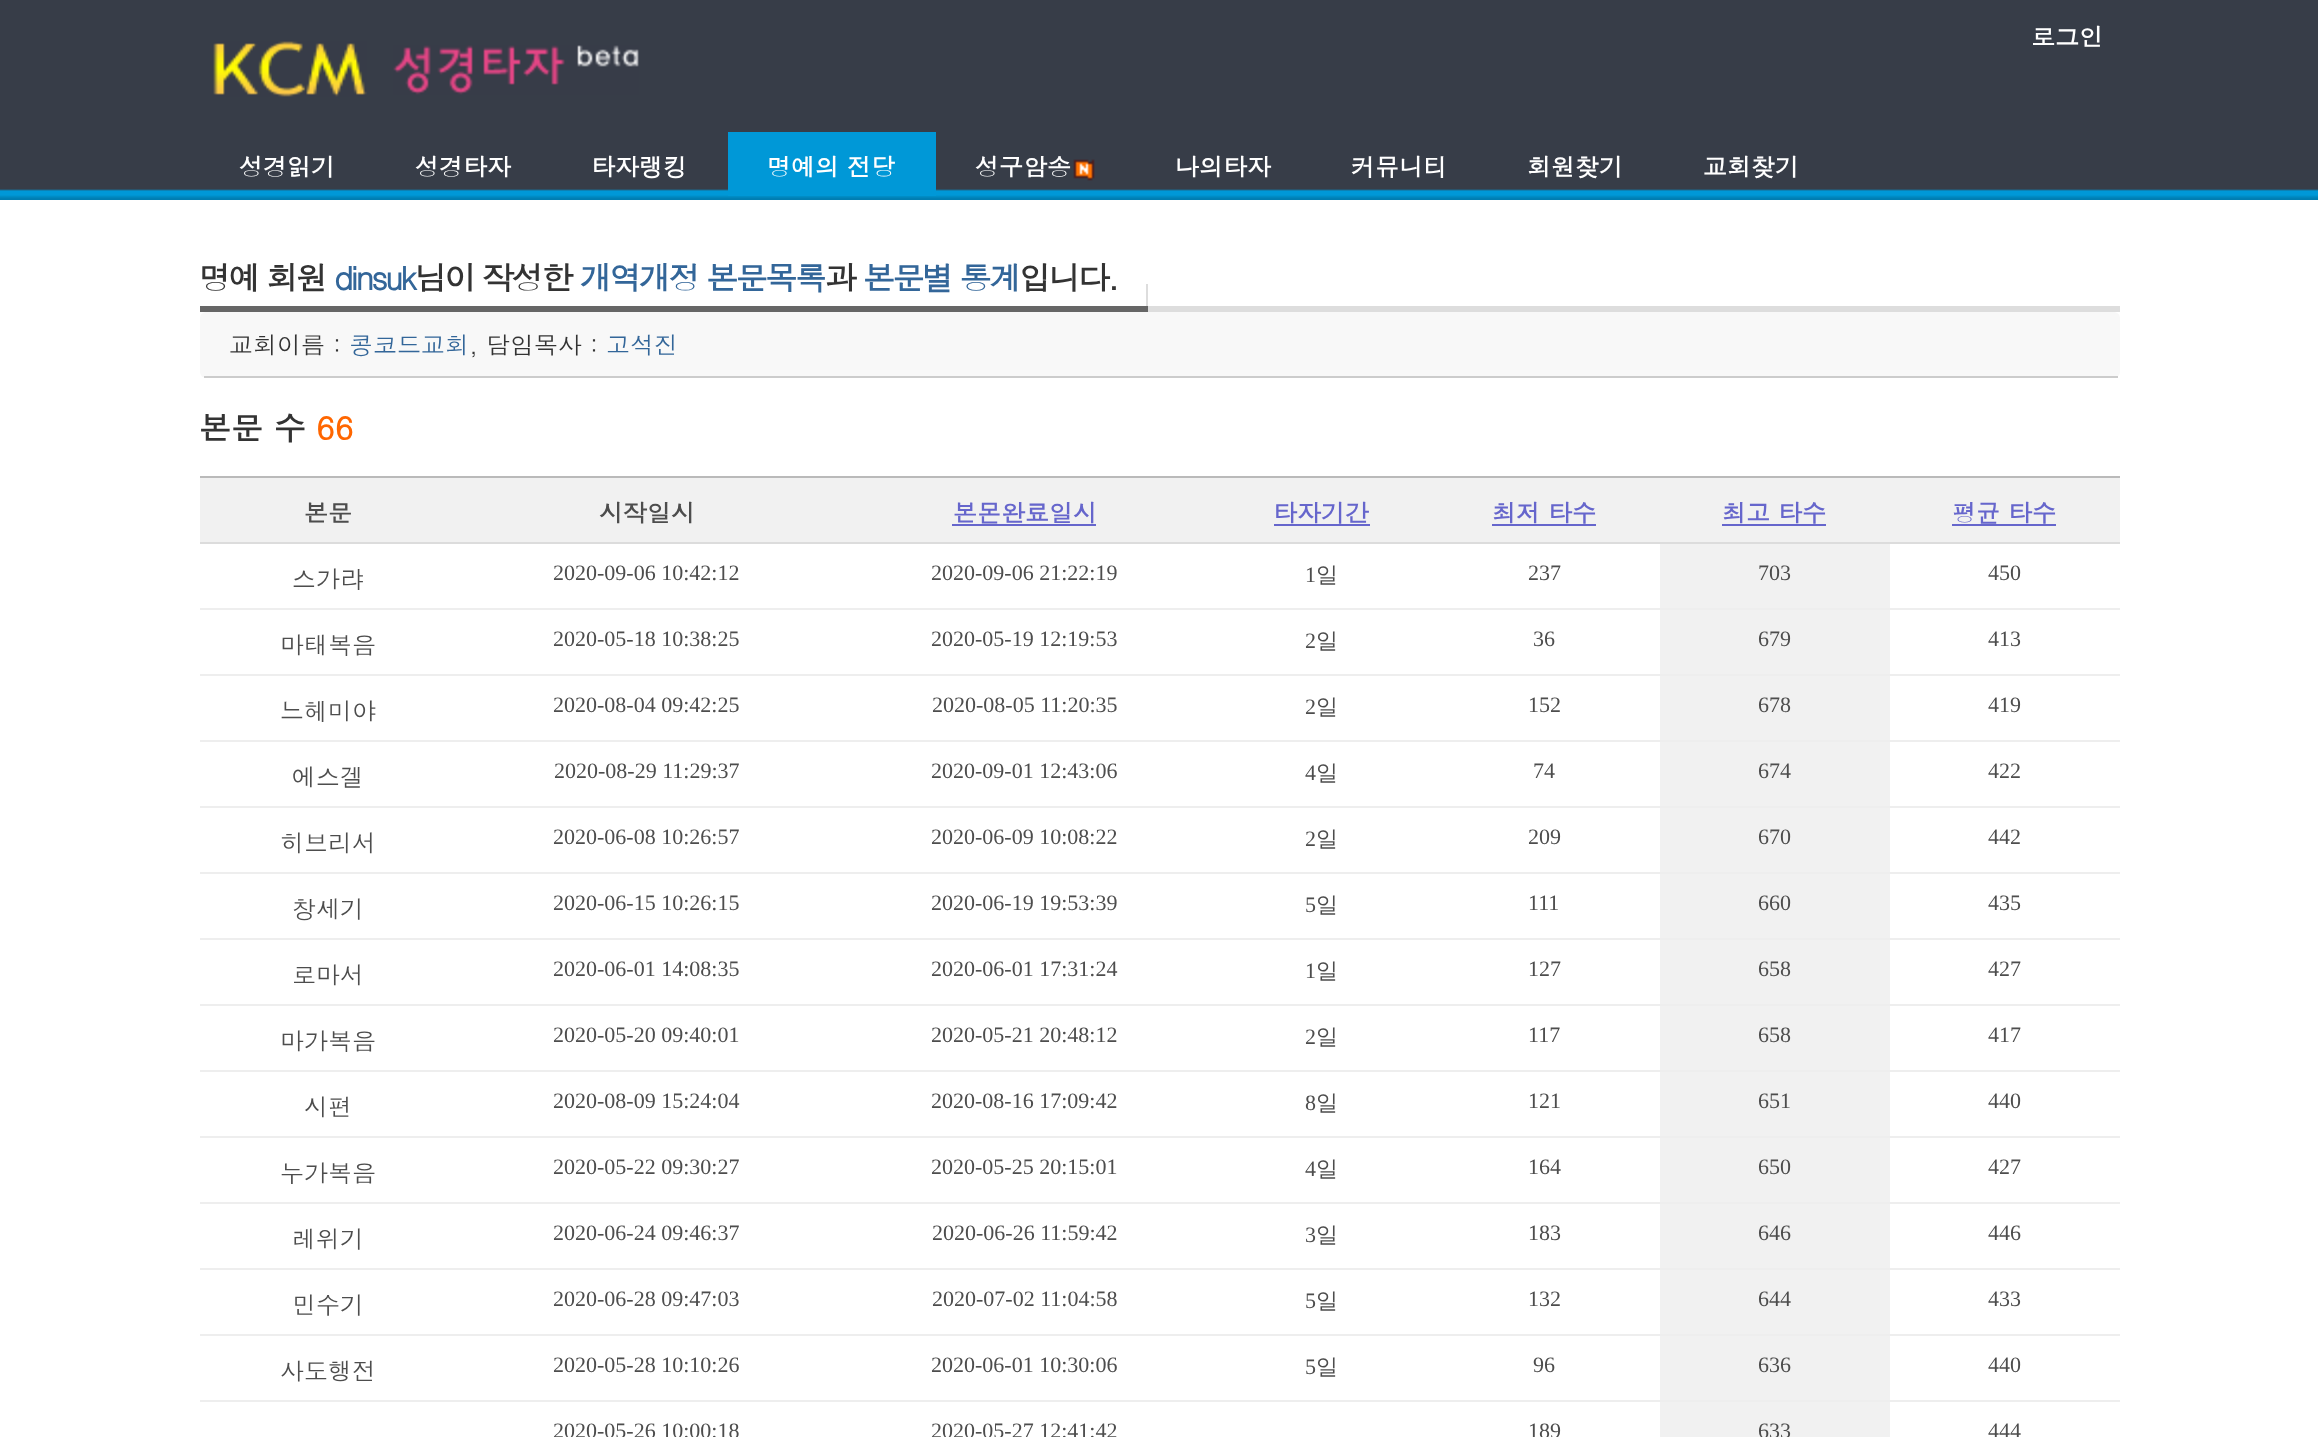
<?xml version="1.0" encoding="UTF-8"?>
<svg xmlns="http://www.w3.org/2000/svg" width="2318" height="1437">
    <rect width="100%" height="100%" fill="#FFFFFF"/>
    <image x="0" y="0" width="2318" height="200" href="img_01.png"/>
    <text x="2031" y="46" font-family="Dotum" font-size="24" font-weight="700" fill="#FFFFFF">로그인</text>
    <image x="213" y="41" width="154" height="56" href="img_02.png"/>
    <image x="393" y="45" width="246" height="50" href="img_03.png"/>
    <text x="239" y="176" font-family="Dotum" font-size="24" font-weight="700" fill="#FFFFFF">성경읽기</text>
    <text x="415" y="176" font-family="Dotum" font-size="24" font-weight="700" fill="#FFFFFF">성경타자</text>
    <text x="591" y="176" font-family="Dotum" font-size="24" font-weight="700" fill="#FFFFFF">타자랭킹</text>
    <rect x="728" y="132" width="208" height="64" fill="#0098D7"/>
    <text x="767" y="176" font-family="Dotum" font-size="24" font-weight="700" fill="#FFFFFF">명예의 전당</text>
    <text x="975" y="176" font-family="Dotum" font-size="24" font-weight="700" fill="#FFFFFF">성구암송</text>
    <image x="1073" y="159" width="22" height="22" href="img_04.png"/>
    <text x="1175" y="176" font-family="Dotum" font-size="24" font-weight="700" fill="#FFFFFF">나의타자</text>
    <text x="1351" y="176" font-family="Dotum" font-size="24" font-weight="700" fill="#FFFFFF">커뮤니티</text>
    <text x="1527" y="176" font-family="Dotum" font-size="24" font-weight="700" fill="#FFFFFF">회원찾기</text>
    <text x="1703" y="176" font-family="Dotum" font-size="24" font-weight="700" fill="#FFFFFF">교회찾기</text>
    <rect x="1148" y="306" width="972" height="6" fill="#DDDDDD"/>
    <rect x="1146" y="284" width="2" height="22" fill="#DDDDDD"/>
    <rect x="200" y="306" width="948" height="6" fill="#666666"/>
    <text x="199" y="290" font-family="Dotum" font-size="32" font-weight="700" letter-spacing="-2.5" fill="#333333">명예 회원</text>
    <text x="334" y="290" font-family="Dotum" font-size="32" font-weight="700" letter-spacing="-2.5" fill="#336699">dinsuk</text>
    <text x="415" y="290" font-family="Dotum" font-size="32" font-weight="700" letter-spacing="-2.5" fill="#333333">님이 작성한</text>
    <text x="580" y="290" font-family="Dotum" font-size="32" font-weight="700" letter-spacing="-2.5" fill="#336699">개역개정 본문목록</text>
    <text x="825" y="290" font-family="Dotum" font-size="32" font-weight="700" letter-spacing="-2.5" fill="#333333">과</text>
    <text x="863" y="290" font-family="Dotum" font-size="32" font-weight="700" letter-spacing="-2.5" fill="#336699">본문별 통계</text>
    <text x="1019" y="290" font-family="Dotum" font-size="32" font-weight="700" letter-spacing="-2.5" fill="#333333">입니다.</text>
    <rect x="200" y="312" width="1920" height="66" rx="6" fill="#F8F8F8"/>
    <rect x="204" y="376" width="1914" height="2" fill="#CCCCCC"/>
    <text x="229" y="354" font-family="Dotum" font-size="24" fill="#333333">교회이름 :</text>
    <text x="349" y="354" font-family="Dotum" font-size="24" fill="#336699">콩코드교회</text>
    <text x="469" y="354" font-family="Dotum" font-size="24" fill="#333333">, 담임목사 :</text>
    <text x="606" y="354" font-family="Dotum" font-size="24" fill="#336699">고석진</text>
    <text x="199" y="440" font-family="Dotum" font-size="32" font-weight="700" fill="#333333">본문 수</text>
    <text x="316" y="440" font-family="Dotum" font-size="32" font-weight="700" fill="#FF6600">66</text>
    <rect x="200" y="476" width="1920" height="2" fill="#BABABA"/>
    <rect x="200" y="478" width="1920" height="64" fill="#F1F1F1"/>
    <rect x="200" y="542" width="1920" height="2" fill="#DCDCDC"/>
    <text x="304" y="522" font-family="Dotum" font-size="24" font-weight="700" fill="#4D4D4D">본문</text>
    <text x="599" y="522" font-family="Dotum" font-size="24" font-weight="700" fill="#4D4D4D">시작일시</text>
    <text x="953" y="522" font-family="Dotum" font-size="24" font-weight="700" fill="#6666CC">본몬완료일시</text>
    <rect x="952" y="524" width="144" height="2" fill="#6666CC"/>
    <text x="1273" y="522" font-family="Dotum" font-size="24" font-weight="700" fill="#6666CC">타자기간</text>
    <rect x="1274" y="524" width="96" height="2" fill="#6666CC"/>
    <text x="1492" y="522" font-family="Dotum" font-size="24" font-weight="700" fill="#6666CC">최저 타수</text>
    <rect x="1492" y="524" width="104" height="2" fill="#6666CC"/>
    <text x="1722" y="522" font-family="Dotum" font-size="24" font-weight="700" fill="#6666CC">최고 타수</text>
    <rect x="1722" y="524" width="104" height="2" fill="#6666CC"/>
    <text x="1952" y="522" font-family="Dotum" font-size="24" font-weight="700" fill="#6666CC">평균 타수</text>
    <rect x="1952" y="524" width="104" height="2" fill="#6666CC"/>
    <rect x="200" y="608" width="1920" height="2" fill="#EEEEEE"/>
    <text x="292" y="588" font-family="Dotum" font-size="24" fill="#4D4D4D">스가랴</text>
    <text x="553" y="580" font-family="Liberation Serif" font-size="22" fill="#4D4D4D">2020-09-06 10:42:12</text>
    <text x="931" y="580" font-family="Liberation Serif" font-size="22" fill="#4D4D4D">2020-09-06 21:22:19</text>
    <text x="1305" y="582" font-family="Liberation Serif" font-size="22" fill="#4D4D4D">1</text>
    <text x="1316" y="582" font-family="WenQuanYi Zen Hei" font-size="22" font-weight="500" fill="#4D4D4D">일</text>
    <text x="1528" y="580" font-family="Liberation Serif" font-size="22" fill="#4D4D4D">237</text>
    <rect x="1660" y="544" width="230" height="64" fill="#F1F1F1"/>
    <text x="1758" y="580" font-family="Liberation Serif" font-size="22" fill="#4D4D4D">703</text>
    <text x="1988" y="580" font-family="Liberation Serif" font-size="22" fill="#4D4D4D">450</text>
    <rect x="200" y="674" width="1920" height="2" fill="#EEEEEE"/>
    <text x="280" y="654" font-family="Dotum" font-size="24" fill="#4D4D4D">마태복음</text>
    <text x="553" y="646" font-family="Liberation Serif" font-size="22" fill="#4D4D4D">2020-05-18 10:38:25</text>
    <text x="931" y="646" font-family="Liberation Serif" font-size="22" fill="#4D4D4D">2020-05-19 12:19:53</text>
    <text x="1305" y="648" font-family="Liberation Serif" font-size="22" fill="#4D4D4D">2</text>
    <text x="1316" y="648" font-family="WenQuanYi Zen Hei" font-size="22" font-weight="500" fill="#4D4D4D">일</text>
    <text x="1533" y="646" font-family="Liberation Serif" font-size="22" fill="#4D4D4D">36</text>
    <rect x="1660" y="610" width="230" height="64" fill="#F1F1F1"/>
    <text x="1758" y="646" font-family="Liberation Serif" font-size="22" fill="#4D4D4D">679</text>
    <text x="1988" y="646" font-family="Liberation Serif" font-size="22" fill="#4D4D4D">413</text>
    <rect x="200" y="740" width="1920" height="2" fill="#EEEEEE"/>
    <text x="280" y="720" font-family="Dotum" font-size="24" fill="#4D4D4D">느헤미야</text>
    <text x="553" y="712" font-family="Liberation Serif" font-size="22" fill="#4D4D4D">2020-08-04 09:42:25</text>
    <text x="932" y="712" font-family="Liberation Serif" font-size="22" fill="#4D4D4D">2020-08-05 11:20:35</text>
    <text x="1305" y="714" font-family="Liberation Serif" font-size="22" fill="#4D4D4D">2</text>
    <text x="1316" y="714" font-family="WenQuanYi Zen Hei" font-size="22" font-weight="500" fill="#4D4D4D">일</text>
    <text x="1528" y="712" font-family="Liberation Serif" font-size="22" fill="#4D4D4D">152</text>
    <rect x="1660" y="676" width="230" height="64" fill="#F1F1F1"/>
    <text x="1758" y="712" font-family="Liberation Serif" font-size="22" fill="#4D4D4D">678</text>
    <text x="1988" y="712" font-family="Liberation Serif" font-size="22" fill="#4D4D4D">419</text>
    <rect x="200" y="806" width="1920" height="2" fill="#EEEEEE"/>
    <text x="292" y="786" font-family="Dotum" font-size="24" fill="#4D4D4D">에스겔</text>
    <text x="554" y="778" font-family="Liberation Serif" font-size="22" fill="#4D4D4D">2020-08-29 11:29:37</text>
    <text x="931" y="778" font-family="Liberation Serif" font-size="22" fill="#4D4D4D">2020-09-01 12:43:06</text>
    <text x="1305" y="780" font-family="Liberation Serif" font-size="22" fill="#4D4D4D">4</text>
    <text x="1316" y="780" font-family="WenQuanYi Zen Hei" font-size="22" font-weight="500" fill="#4D4D4D">일</text>
    <text x="1533" y="778" font-family="Liberation Serif" font-size="22" fill="#4D4D4D">74</text>
    <rect x="1660" y="742" width="230" height="64" fill="#F1F1F1"/>
    <text x="1758" y="778" font-family="Liberation Serif" font-size="22" fill="#4D4D4D">674</text>
    <text x="1988" y="778" font-family="Liberation Serif" font-size="22" fill="#4D4D4D">422</text>
    <rect x="200" y="872" width="1920" height="2" fill="#EEEEEE"/>
    <text x="280" y="852" font-family="Dotum" font-size="24" fill="#4D4D4D">히브리서</text>
    <text x="553" y="844" font-family="Liberation Serif" font-size="22" fill="#4D4D4D">2020-06-08 10:26:57</text>
    <text x="931" y="844" font-family="Liberation Serif" font-size="22" fill="#4D4D4D">2020-06-09 10:08:22</text>
    <text x="1305" y="846" font-family="Liberation Serif" font-size="22" fill="#4D4D4D">2</text>
    <text x="1316" y="846" font-family="WenQuanYi Zen Hei" font-size="22" font-weight="500" fill="#4D4D4D">일</text>
    <text x="1528" y="844" font-family="Liberation Serif" font-size="22" fill="#4D4D4D">209</text>
    <rect x="1660" y="808" width="230" height="64" fill="#F1F1F1"/>
    <text x="1758" y="844" font-family="Liberation Serif" font-size="22" fill="#4D4D4D">670</text>
    <text x="1988" y="844" font-family="Liberation Serif" font-size="22" fill="#4D4D4D">442</text>
    <rect x="200" y="938" width="1920" height="2" fill="#EEEEEE"/>
    <text x="292" y="918" font-family="Dotum" font-size="24" fill="#4D4D4D">창세기</text>
    <text x="553" y="910" font-family="Liberation Serif" font-size="22" fill="#4D4D4D">2020-06-15 10:26:15</text>
    <text x="931" y="910" font-family="Liberation Serif" font-size="22" fill="#4D4D4D">2020-06-19 19:53:39</text>
    <text x="1305" y="912" font-family="Liberation Serif" font-size="22" fill="#4D4D4D">5</text>
    <text x="1316" y="912" font-family="WenQuanYi Zen Hei" font-size="22" font-weight="500" fill="#4D4D4D">일</text>
    <text x="1528" y="910" font-family="Liberation Serif" font-size="22" fill="#4D4D4D">111</text>
    <rect x="1660" y="874" width="230" height="64" fill="#F1F1F1"/>
    <text x="1758" y="910" font-family="Liberation Serif" font-size="22" fill="#4D4D4D">660</text>
    <text x="1988" y="910" font-family="Liberation Serif" font-size="22" fill="#4D4D4D">435</text>
    <rect x="200" y="1004" width="1920" height="2" fill="#EEEEEE"/>
    <text x="292" y="984" font-family="Dotum" font-size="24" fill="#4D4D4D">로마서</text>
    <text x="553" y="976" font-family="Liberation Serif" font-size="22" fill="#4D4D4D">2020-06-01 14:08:35</text>
    <text x="931" y="976" font-family="Liberation Serif" font-size="22" fill="#4D4D4D">2020-06-01 17:31:24</text>
    <text x="1305" y="978" font-family="Liberation Serif" font-size="22" fill="#4D4D4D">1</text>
    <text x="1316" y="978" font-family="WenQuanYi Zen Hei" font-size="22" font-weight="500" fill="#4D4D4D">일</text>
    <text x="1528" y="976" font-family="Liberation Serif" font-size="22" fill="#4D4D4D">127</text>
    <rect x="1660" y="940" width="230" height="64" fill="#F1F1F1"/>
    <text x="1758" y="976" font-family="Liberation Serif" font-size="22" fill="#4D4D4D">658</text>
    <text x="1988" y="976" font-family="Liberation Serif" font-size="22" fill="#4D4D4D">427</text>
    <rect x="200" y="1070" width="1920" height="2" fill="#EEEEEE"/>
    <text x="280" y="1050" font-family="Dotum" font-size="24" fill="#4D4D4D">마가복음</text>
    <text x="553" y="1042" font-family="Liberation Serif" font-size="22" fill="#4D4D4D">2020-05-20 09:40:01</text>
    <text x="931" y="1042" font-family="Liberation Serif" font-size="22" fill="#4D4D4D">2020-05-21 20:48:12</text>
    <text x="1305" y="1044" font-family="Liberation Serif" font-size="22" fill="#4D4D4D">2</text>
    <text x="1316" y="1044" font-family="WenQuanYi Zen Hei" font-size="22" font-weight="500" fill="#4D4D4D">일</text>
    <text x="1528" y="1042" font-family="Liberation Serif" font-size="22" fill="#4D4D4D">117</text>
    <rect x="1660" y="1006" width="230" height="64" fill="#F1F1F1"/>
    <text x="1758" y="1042" font-family="Liberation Serif" font-size="22" fill="#4D4D4D">658</text>
    <text x="1988" y="1042" font-family="Liberation Serif" font-size="22" fill="#4D4D4D">417</text>
    <rect x="200" y="1136" width="1920" height="2" fill="#EEEEEE"/>
    <text x="304" y="1116" font-family="Dotum" font-size="24" fill="#4D4D4D">시편</text>
    <text x="553" y="1108" font-family="Liberation Serif" font-size="22" fill="#4D4D4D">2020-08-09 15:24:04</text>
    <text x="931" y="1108" font-family="Liberation Serif" font-size="22" fill="#4D4D4D">2020-08-16 17:09:42</text>
    <text x="1305" y="1110" font-family="Liberation Serif" font-size="22" fill="#4D4D4D">8</text>
    <text x="1316" y="1110" font-family="WenQuanYi Zen Hei" font-size="22" font-weight="500" fill="#4D4D4D">일</text>
    <text x="1528" y="1108" font-family="Liberation Serif" font-size="22" fill="#4D4D4D">121</text>
    <rect x="1660" y="1072" width="230" height="64" fill="#F1F1F1"/>
    <text x="1758" y="1108" font-family="Liberation Serif" font-size="22" fill="#4D4D4D">651</text>
    <text x="1988" y="1108" font-family="Liberation Serif" font-size="22" fill="#4D4D4D">440</text>
    <rect x="200" y="1202" width="1920" height="2" fill="#EEEEEE"/>
    <text x="280" y="1182" font-family="Dotum" font-size="24" fill="#4D4D4D">누가복음</text>
    <text x="553" y="1174" font-family="Liberation Serif" font-size="22" fill="#4D4D4D">2020-05-22 09:30:27</text>
    <text x="931" y="1174" font-family="Liberation Serif" font-size="22" fill="#4D4D4D">2020-05-25 20:15:01</text>
    <text x="1305" y="1176" font-family="Liberation Serif" font-size="22" fill="#4D4D4D">4</text>
    <text x="1316" y="1176" font-family="WenQuanYi Zen Hei" font-size="22" font-weight="500" fill="#4D4D4D">일</text>
    <text x="1528" y="1174" font-family="Liberation Serif" font-size="22" fill="#4D4D4D">164</text>
    <rect x="1660" y="1138" width="230" height="64" fill="#F1F1F1"/>
    <text x="1758" y="1174" font-family="Liberation Serif" font-size="22" fill="#4D4D4D">650</text>
    <text x="1988" y="1174" font-family="Liberation Serif" font-size="22" fill="#4D4D4D">427</text>
    <rect x="200" y="1268" width="1920" height="2" fill="#EEEEEE"/>
    <text x="292" y="1248" font-family="Dotum" font-size="24" fill="#4D4D4D">레위기</text>
    <text x="553" y="1240" font-family="Liberation Serif" font-size="22" fill="#4D4D4D">2020-06-24 09:46:37</text>
    <text x="932" y="1240" font-family="Liberation Serif" font-size="22" fill="#4D4D4D">2020-06-26 11:59:42</text>
    <text x="1305" y="1242" font-family="Liberation Serif" font-size="22" fill="#4D4D4D">3</text>
    <text x="1316" y="1242" font-family="WenQuanYi Zen Hei" font-size="22" font-weight="500" fill="#4D4D4D">일</text>
    <text x="1528" y="1240" font-family="Liberation Serif" font-size="22" fill="#4D4D4D">183</text>
    <rect x="1660" y="1204" width="230" height="64" fill="#F1F1F1"/>
    <text x="1758" y="1240" font-family="Liberation Serif" font-size="22" fill="#4D4D4D">646</text>
    <text x="1988" y="1240" font-family="Liberation Serif" font-size="22" fill="#4D4D4D">446</text>
    <rect x="200" y="1334" width="1920" height="2" fill="#EEEEEE"/>
    <text x="292" y="1314" font-family="Dotum" font-size="24" fill="#4D4D4D">민수기</text>
    <text x="553" y="1306" font-family="Liberation Serif" font-size="22" fill="#4D4D4D">2020-06-28 09:47:03</text>
    <text x="932" y="1306" font-family="Liberation Serif" font-size="22" fill="#4D4D4D">2020-07-02 11:04:58</text>
    <text x="1305" y="1308" font-family="Liberation Serif" font-size="22" fill="#4D4D4D">5</text>
    <text x="1316" y="1308" font-family="WenQuanYi Zen Hei" font-size="22" font-weight="500" fill="#4D4D4D">일</text>
    <text x="1528" y="1306" font-family="Liberation Serif" font-size="22" fill="#4D4D4D">132</text>
    <rect x="1660" y="1270" width="230" height="64" fill="#F1F1F1"/>
    <text x="1758" y="1306" font-family="Liberation Serif" font-size="22" fill="#4D4D4D">644</text>
    <text x="1988" y="1306" font-family="Liberation Serif" font-size="22" fill="#4D4D4D">433</text>
    <rect x="200" y="1400" width="1920" height="2" fill="#EEEEEE"/>
    <text x="280" y="1380" font-family="Dotum" font-size="24" fill="#4D4D4D">사도행전</text>
    <text x="553" y="1372" font-family="Liberation Serif" font-size="22" fill="#4D4D4D">2020-05-28 10:10:26</text>
    <text x="931" y="1372" font-family="Liberation Serif" font-size="22" fill="#4D4D4D">2020-06-01 10:30:06</text>
    <text x="1305" y="1374" font-family="Liberation Serif" font-size="22" fill="#4D4D4D">5</text>
    <text x="1316" y="1374" font-family="WenQuanYi Zen Hei" font-size="22" font-weight="500" fill="#4D4D4D">일</text>
    <text x="1533" y="1372" font-family="Liberation Serif" font-size="22" fill="#4D4D4D">96</text>
    <rect x="1660" y="1336" width="230" height="64" fill="#F1F1F1"/>
    <text x="1758" y="1372" font-family="Liberation Serif" font-size="22" fill="#4D4D4D">636</text>
    <text x="1988" y="1372" font-family="Liberation Serif" font-size="22" fill="#4D4D4D">440</text>
    <text x="553" y="1438" font-family="Liberation Serif" font-size="22" fill="#4D4D4D">2020-05-26 10:00:18</text>
    <text x="931" y="1438" font-family="Liberation Serif" font-size="22" fill="#4D4D4D">2020-05-27 12:41:42</text>
    <text x="1528" y="1438" font-family="Liberation Serif" font-size="22" fill="#4D4D4D">189</text>
    <rect x="1660" y="1402" width="230" height="35" fill="#F1F1F1"/>
    <text x="1758" y="1438" font-family="Liberation Serif" font-size="22" fill="#4D4D4D">633</text>
    <text x="1988" y="1438" font-family="Liberation Serif" font-size="22" fill="#4D4D4D">444</text>
</svg>
